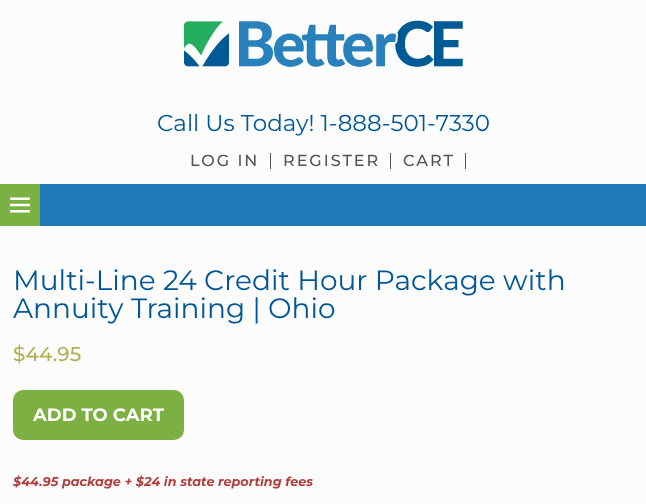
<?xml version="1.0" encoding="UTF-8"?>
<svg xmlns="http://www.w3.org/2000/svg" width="646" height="504">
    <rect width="100%" height="100%" fill="#FCFCFC"/>
    <image x="184" y="20" width="279" height="47" href="img_01.png"/>
    <text x="157" y="131" font-family="Montserrat" font-size="23" fill="#015796">Call Us Today! 1-888-501-7330</text>
    <rect x="270" y="153" width="1" height="16" fill="#545456"/>
    <text x="190" y="166" font-family="Montserrat" font-size="16" font-weight="500" letter-spacing="2" fill="#545456">LOG IN</text>
    <rect x="390" y="153" width="1" height="16" fill="#545456"/>
    <text x="283" y="166" font-family="Montserrat" font-size="16" font-weight="500" letter-spacing="2" fill="#545456">REGISTER</text>
    <rect x="465" y="153" width="1" height="16" fill="#545456"/>
    <text x="403" y="166" font-family="Montserrat" font-size="16" font-weight="500" letter-spacing="2" fill="#545456">CART</text>
    <rect x="40" y="184" width="606" height="42" fill="#1E7AB7"/>
    <rect x="0" y="184" width="40" height="42" fill="#7BB142"/>
    <image x="10" y="197" width="20" height="16" href="img_02.png"/>
    <text font-family="Montserrat" font-size="28" fill="#015796">
        <tspan x="13" y="290">Multi-Line 24 Credit Hour Package with</tspan>
        <tspan x="13" y="318">Annuity Training | Ohio</tspan>
    </text>
    <text x="13" y="361" font-family="Montserrat" font-size="20" font-weight="500" fill="#B3AF54">$44.95</text>
    <rect x="13" y="390" width="171" height="50" rx="10" fill="#7CB042"/>
    <text x="33" y="421" font-family="Montserrat" font-size="18" font-weight="700" fill="#FFFFFF">ADD TO CART</text>
    <text x="13" y="486" font-family="Montserrat" font-size="12.8" font-weight="700" font-style="italic" fill="#B13D3D">$44.95 package + $24 in state reporting fees</text>
</svg>
